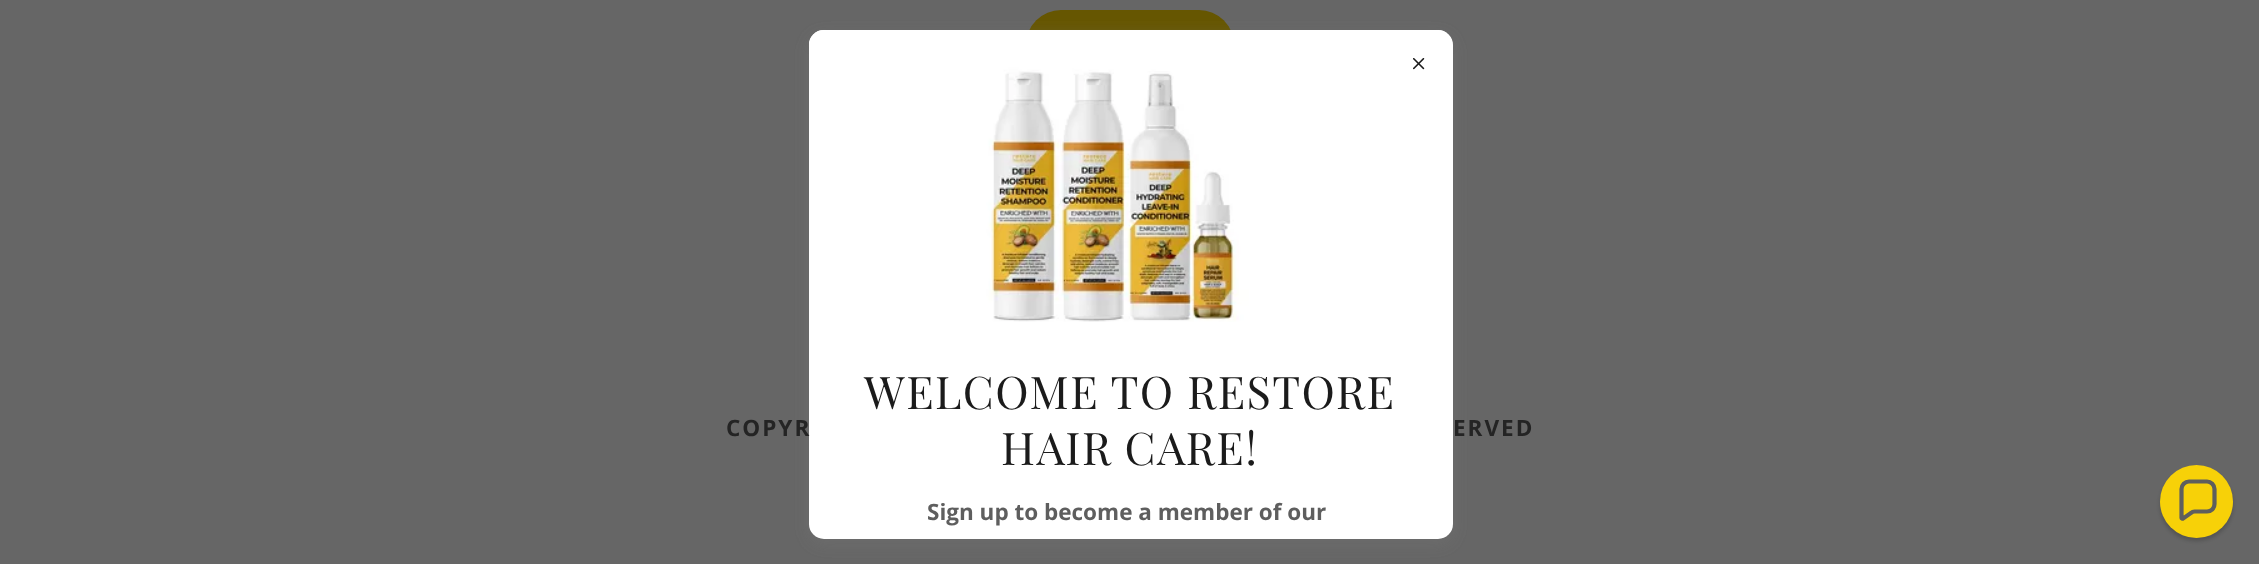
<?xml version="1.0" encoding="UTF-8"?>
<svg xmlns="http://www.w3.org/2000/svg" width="2259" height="564">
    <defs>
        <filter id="blur1" x="-50%" y="-200%" width="200%" height="500%"><feGaussianBlur stdDeviation="7.5"/></filter>
        <filter id="blur2" x="-50%" y="-200%" width="200%" height="500%"><feGaussianBlur stdDeviation="2"/></filter>
    </defs>
    <rect width="100%" height="100%" fill="#666666"/>
    <rect x="1026" y="10" width="208" height="70" rx="35" fill="#665601"/>
    <rect x="809" y="35" width="644" height="509" rx="15" fill="#757575" fill-opacity="0.4" filter="url(#blur1)"/>
    <rect x="809" y="30" width="644" height="509" rx="15" fill="#FFFFFF"/>
    <image x="809" y="30" width="644" height="292" href="img_02.png"/>
    <image x="1413" y="58" width="12" height="12" href="img_01.png"/>
    <text x="864" y="409" font-family="Playfair Display" font-size="45" letter-spacing="1.4" fill="#1B1B1B">WELCOME TO RESTORE</text>
    <text x="1001" y="465" font-family="Playfair Display" font-size="45" letter-spacing="1.4" fill="#1B1B1B">HAIR CARE!</text>
    <text x="927" y="520" font-family="Open Sans" font-size="22.5" font-weight="700" fill="#5E5E5E">Sign up to become a member of our</text>
    <text x="726" y="436" font-family="Open Sans" font-size="22.5" font-weight="700" letter-spacing="2" fill="#242424">COPYR</text>
    <text x="1453" y="436" font-family="Open Sans" font-size="22.5" font-weight="700" letter-spacing="2" fill="#242424">ERVED</text>
    <rect x="2160" y="469" width="73" height="72" rx="36" fill="#050505" fill-opacity="0.2" filter="url(#blur2)"/>
    <circle cx="2196.5" cy="501.5" r="36.5" fill="#F7D108"/>
    <path d="M 2207 481.5 H 2189 C 2185 481.5 2181.5 485 2181.5 489 V 518 C 2181.5 518.5 2182.5 519 2183 518.5 L 2191 513 C 2192 512 2193.5 511.5 2194.5 511.5 H 2207 C 2211 511.5 2214.5 508.5 2214.5 504 V 489 C 2214.5 485 2211 481.5 2207 481.5 Z" fill="none" stroke="#5E5E5E" stroke-width="4.2"/>
</svg>
